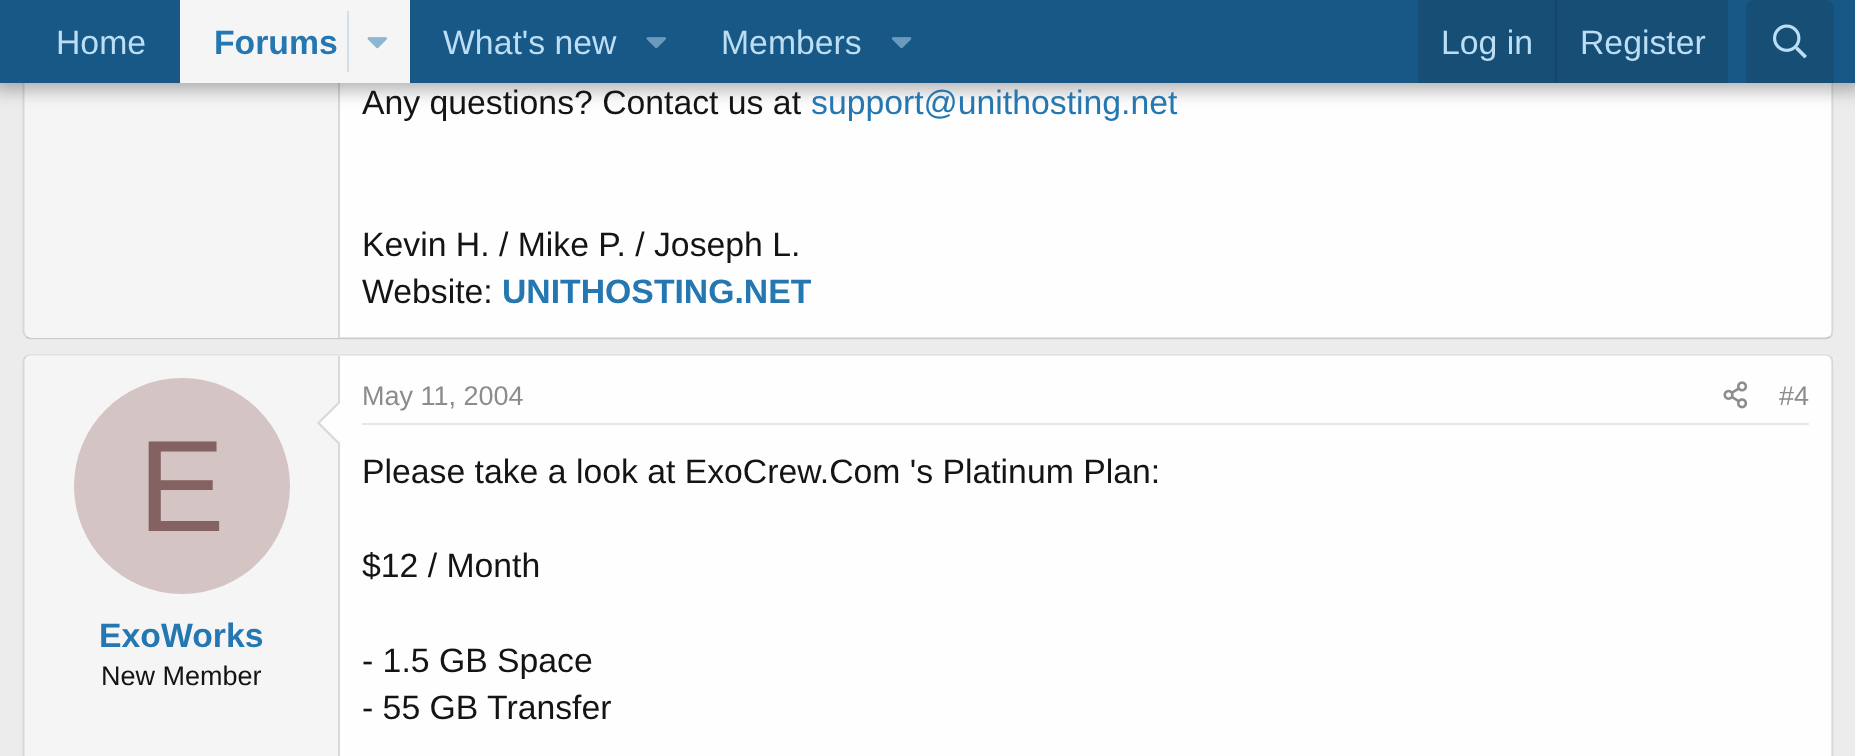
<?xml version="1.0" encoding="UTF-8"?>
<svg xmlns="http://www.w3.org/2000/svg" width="1855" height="756">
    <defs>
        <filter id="blur1" x="-50%" y="-200%" width="200%" height="500%"><feGaussianBlur stdDeviation="9"/></filter>
    </defs>
    <rect width="100%" height="100%" fill="#ECECEC"/>
    <rect x="23" y="-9" width="1811" height="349" rx="9" fill="#FEFEFE"/>
    <path d="M 1830.5 -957.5 C 1832 -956 1832.5 -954 1832.5 -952 V 331 C 1832.5 333 1832 335 1830.5 336.5" fill="none" stroke="#D8D8D8" stroke-width="2.2"/>
    <path d="M 1830.5 336.5 C 1829 338 1827 338.5 1825 338.5 H 31.5 C 29.5 338.5 27.5 338 26 336.5" fill="none" stroke="#CBCBCB" stroke-width="2.2"/>
    <path d="M 26 336.5 C 24.5 335 23.5 333 23.5 331 V -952 C 23.5 -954 24.5 -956 26 -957.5" fill="none" stroke="#D8D8D8" stroke-width="2.2"/>
    <path d="M 32 -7 H 340 V 338 H 32 C 28 338 25 335 25 331 V 0 C 25 -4 28 -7 32 -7 Z" fill="#F5F5F5"/>
    <rect x="338" y="83" width="2" height="255" fill="#D8D8D8"/>
    <rect x="-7" y="-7" width="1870" height="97" fill="#000000" fill-opacity="0.3" filter="url(#blur1)"/>
    <rect x="0" y="0" width="1855" height="83" fill="#185886"/>
    <text x="56" y="54" font-family="Liberation Sans" font-size="33.75" fill="#BCDEF5">Home</text>
    <rect x="180" y="0" width="230" height="83" fill="#F5F5F5"/>
    <text x="214" y="54" font-family="Liberation Sans" font-size="33.75" font-weight="700" fill="#2577B1">Forums</text>
    <rect x="347" y="11" width="2" height="61" fill="#D1DFE9"/>
    <image x="367" y="37" width="20" height="12" href="img_01.png"/>
    <text x="443" y="54" font-family="Liberation Sans" font-size="33.75" fill="#BCDEF5">What's new</text>
    <image x="646" y="37" width="20" height="12" href="img_02.png"/>
    <text x="721" y="54" font-family="Liberation Sans" font-size="33.75" fill="#BCDEF5">Members</text>
    <image x="891" y="37" width="21" height="12" href="img_03.png"/>
    <rect x="1418" y="0" width="310" height="83" fill="#174E75"/>
    <text x="1441" y="54" font-family="Liberation Sans" font-size="33.75" fill="#BCDEF5">Log in</text>
    <rect x="1555" y="0" width="2" height="83" fill="#174566"/>
    <text x="1580" y="54" font-family="Liberation Sans" font-size="33.75" fill="#BCDEF5">Register</text>
    <path d="M 1755 0 H 1825 C 1830 0 1834 4 1834 9 V 83 H 1746 V 9 C 1746 4 1750 0 1755 0 Z" fill="#174E75"/>
    <image x="1773" y="24" width="34" height="35" href="img_04.png"/>
    <text x="362" y="114" font-family="Liberation Sans" font-size="33.75" fill="#141414">Any questions? Contact us at</text>
    <text x="811" y="114" font-family="Liberation Sans" font-size="33.75" fill="#2577B1">support@unithosting.net</text>
    <text font-family="Liberation Sans" font-size="33.75" fill="#141414">
        <tspan x="362" y="256">Kevin H. / Mike P. / Joseph L.</tspan>
        <tspan x="362" y="303">Website:</tspan>
    </text>
    <text x="502" y="303" font-family="Liberation Sans" font-size="33.75" font-weight="700" fill="#2577B1">UNITHOSTING.NET</text>
    <rect x="23" y="353" width="1811" height="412" rx="9" fill="#FEFEFE"/>
    <path d="M 26 356.5 C 27.5 355 29.5 354.5 31.5 354.5 H 1825 C 1827 354.5 1829 355 1830.5 356.5" fill="none" stroke="#DFDFDF" stroke-width="2.2"/>
    <path d="M 1830.5 356.5 C 1832 358 1832.5 360 1832.5 362 V 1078 C 1832.5 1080 1832 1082 1830.5 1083.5" fill="none" stroke="#D8D8D8" stroke-width="2.2"/>
    <path d="M 26 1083.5 C 24.5 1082 23.5 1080 23.5 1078 V 362 C 23.5 360 24.5 358 26 356.5" fill="none" stroke="#D8D8D8" stroke-width="2.2"/>
    <path d="M 32 356 H 340 V 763 H 32 C 28 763 25 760 25 756 V 363 C 25 359 28 356 32 356 Z" fill="#F5F5F5"/>
    <rect x="338" y="356" width="2" height="400" fill="#D8D8D8"/>
    <path d="M 340 400 V 446 L 317 423 Z" fill="#D8D8D8"/>
    <path d="M 340 403 V 443 L 320 423 Z" fill="#FEFEFE"/>
    <circle cx="182" cy="486" r="108" fill="#D4C4C4"/>
    <text x="138" y="531" font-family="Liberation Sans" font-size="130" fill="#846262">E</text>
    <text x="99" y="647" font-family="Liberation Sans" font-size="33.75" font-weight="700" fill="#2577B1">ExoWorks</text>
    <text x="101" y="685" font-family="Liberation Sans" font-size="27" fill="#141414">New Member</text>
    <rect x="362" y="423" width="1447" height="2" fill="#E7E7E7"/>
    <text x="362" y="405" font-family="Liberation Sans" font-size="27" fill="#8C8C8C">May 11, 2004</text>
    <image x="1723" y="381" width="25" height="28" href="img_05.png"/>
    <text x="1779" y="405" font-family="Liberation Sans" font-size="27" fill="#8C8C8C">#4</text>
    <text x="362" y="483" font-family="Liberation Sans" font-size="33.75" fill="#141414">Please take a look at ExoCrew.Com 's Platinum Plan:</text>
    <text x="362" y="577" font-family="Liberation Sans" font-size="33.75" fill="#141414">$12 / Month</text>
    <text font-family="Liberation Sans" font-size="33.75" fill="#141414">
        <tspan x="362" y="672">- 1.5 GB Space</tspan>
        <tspan x="362" y="719">- 55 GB Transfer</tspan>
    </text>
</svg>
